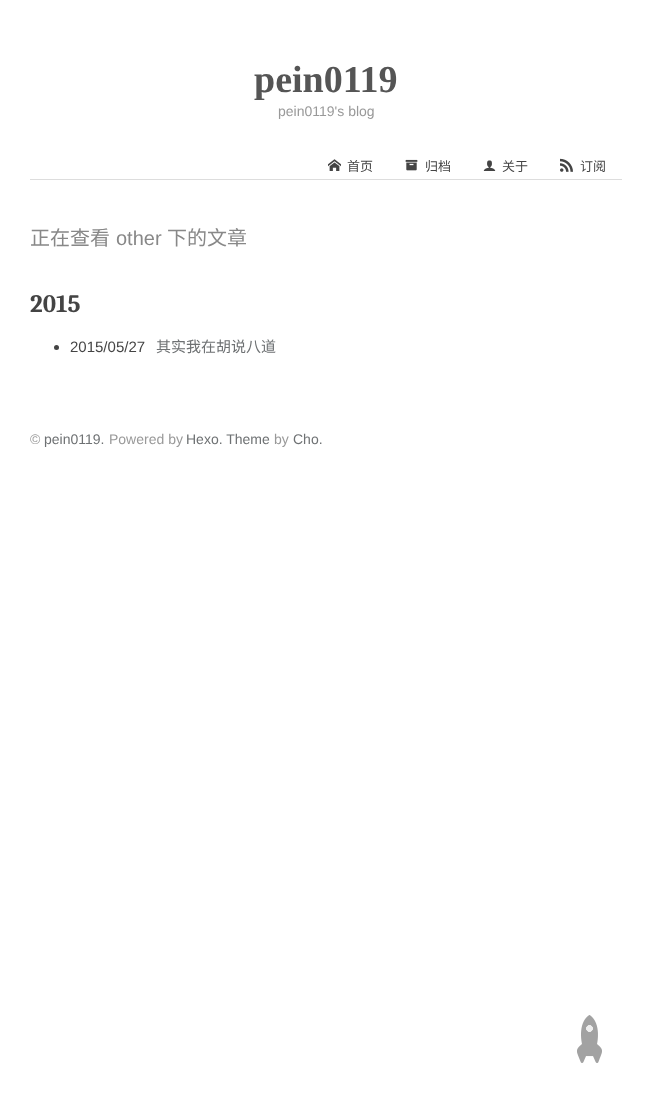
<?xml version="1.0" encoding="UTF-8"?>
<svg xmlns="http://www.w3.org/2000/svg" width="652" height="1113">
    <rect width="100%" height="100%" fill="#FFFFFF"/>
    <rect x="30" y="179" width="592" height="1" fill="#DDDDDD"/>
    <text x="254" y="92" font-family="Liberation Serif" font-size="38" font-weight="700" fill="#555555">pein0119</text>
    <text x="278" y="116" font-family="Liberation Sans" font-size="14" fill="#999999">pein0119's blog</text>
    <image x="328" y="159" width="13" height="12" href="img_01.png"/>
    <text x="347" y="171" font-family="Noto Sans CJK SC" font-size="13" fill="#444444">首页</text>
    <image x="405" y="159" width="13" height="12" href="img_02.png"/>
    <text x="425" y="171" font-family="Noto Sans CJK SC" font-size="13" fill="#444444">归档</text>
    <image x="483" y="160" width="13" height="11" href="img_03.png"/>
    <text x="502" y="171" font-family="Noto Sans CJK SC" font-size="13" fill="#444444">关于</text>
    <image x="560" y="158" width="13" height="14" href="img_04.png"/>
    <text x="580" y="171" font-family="Noto Sans CJK SC" font-size="13" fill="#444444">订阅</text>
    <text x="30" y="245" font-family="Noto Sans CJK SC" font-size="20" fill="#888888">正在查看</text>
    <text x="116" y="245" font-family="Liberation Sans" font-size="20" fill="#888888">other</text>
    <text x="167" y="245" font-family="Noto Sans CJK SC" font-size="20" fill="#888888">下的文章</text>
    <text x="30" y="312" font-family="Caladea" font-size="25" font-weight="700" fill="#444444">2015</text>
    <circle cx="56.5" cy="347.5" r="2.5" fill="#444444"/>
    <text x="70" y="352" font-family="Liberation Sans" font-size="15" fill="#444444">2015/05/27</text>
    <text x="156" y="352" font-family="Noto Sans CJK SC" font-size="15" fill="#6E7173">其实我在胡说八道</text>
    <text x="30" y="444" font-family="Liberation Sans" font-size="14" fill="#999999">©</text>
    <text x="44" y="444" font-family="Liberation Sans" font-size="14" fill="#6E7173">pein0119.</text>
    <text x="109" y="444" font-family="Liberation Sans" font-size="14" fill="#999999">Powered by</text>
    <text x="186" y="444" font-family="Liberation Sans" font-size="14" fill="#6E7173">Hexo. Theme</text>
    <text x="274" y="444" font-family="Liberation Sans" font-size="14" fill="#999999">by</text>
    <text x="293" y="444" font-family="Liberation Sans" font-size="14" fill="#6E7173">Cho.</text>
    <image x="577" y="1015" width="25" height="48" href="img_05.png"/>
</svg>
